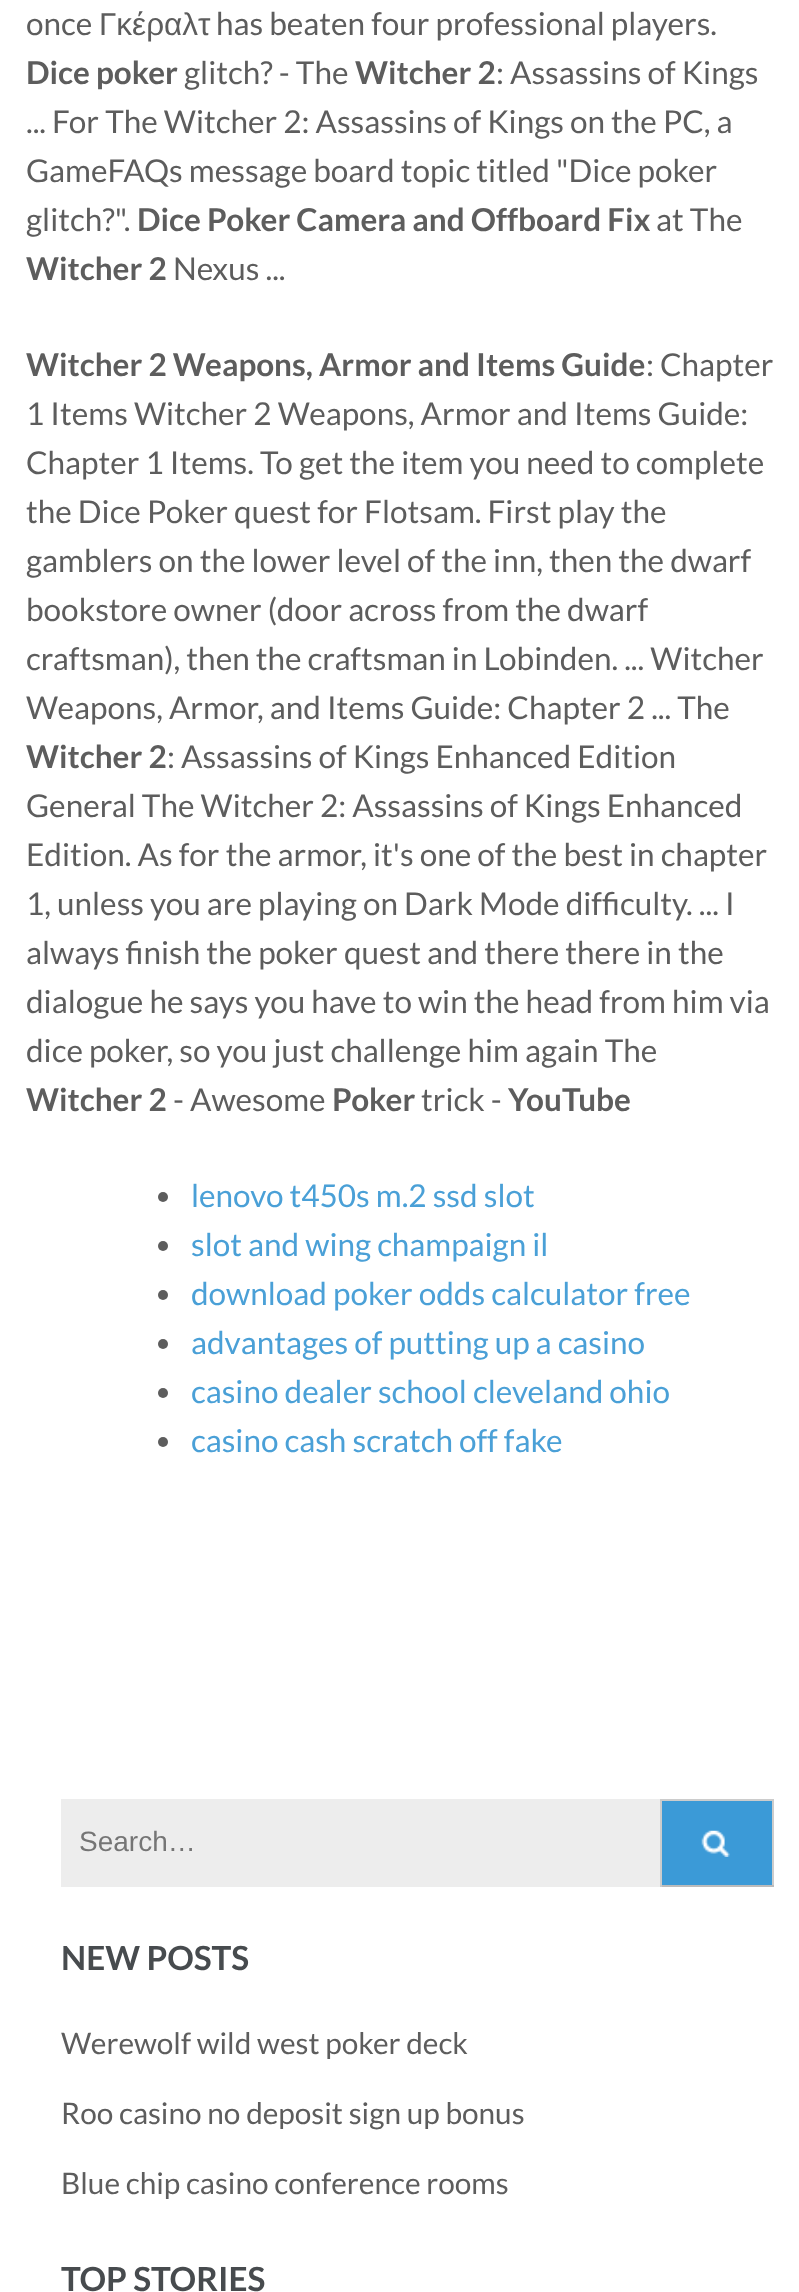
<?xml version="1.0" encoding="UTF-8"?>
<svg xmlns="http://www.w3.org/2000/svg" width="799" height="2292">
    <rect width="100%" height="100%" fill="#FFFFFF"/>
    <text x="26" y="35" font-family="Lato" font-size="31.5" fill="#5D5D5D">once</text>
    <text x="99" y="35" font-family="Liberation Sans" font-size="31.5" fill="#5D5D5D">Γκέραλτ</text>
    <text x="216" y="35" font-family="Lato" font-size="31.5" fill="#5D5D5D">has beaten four professional players.</text>
    <text x="26" y="84" font-family="Lato" font-size="31.5" font-weight="700" fill="#5D5D5D">Dice poker</text>
    <text x="184" y="84" font-family="Lato" font-size="31.5" fill="#5D5D5D">glitch? - The</text>
    <text x="355" y="84" font-family="Lato" font-size="31.5" font-weight="700" fill="#5D5D5D">Witcher 2</text>
    <text x="496" y="84" font-family="Lato" font-size="31.5" fill="#5D5D5D">: Assassins of Kings</text>
    <text font-family="Lato" font-size="31.5" fill="#5D5D5D">
        <tspan x="26" y="133">... For The Witcher 2: Assassins of Kings on the PC, a</tspan>
        <tspan x="26" y="182">GameFAQs message board topic titled "Dice poker</tspan>
        <tspan x="26" y="231">glitch?".</tspan>
    </text>
    <text x="137" y="231" font-family="Lato" font-size="31.5" font-weight="700" fill="#5D5D5D">Dice Poker Camera and Offboard Fix</text>
    <text x="656" y="231" font-family="Lato" font-size="31.5" fill="#5D5D5D">at The</text>
    <text x="26" y="280" font-family="Lato" font-size="31.5" font-weight="700" fill="#5D5D5D">Witcher 2</text>
    <text x="173" y="280" font-family="Lato" font-size="31.5" fill="#5D5D5D">Nexus ...</text>
    <text x="26" y="376" font-family="Lato" font-size="31.5" font-weight="700" fill="#5D5D5D">Witcher 2 Weapons, Armor and Items Guide</text>
    <text x="646" y="376" font-family="Lato" font-size="31.5" fill="#5D5D5D">: Chapter</text>
    <text font-family="Lato" font-size="31.5" fill="#5D5D5D">
        <tspan x="26" y="425">1 Items Witcher 2 Weapons, Armor and Items Guide:</tspan>
        <tspan x="26" y="474">Chapter 1 Items. To get the item you need to complete</tspan>
        <tspan x="26" y="523">the Dice Poker quest for Flotsam. First play the</tspan>
        <tspan x="26" y="572">gamblers on the lower level of the inn, then the dwarf</tspan>
        <tspan x="26" y="621">bookstore owner (door across from the dwarf</tspan>
        <tspan x="26" y="670">craftsman), then the craftsman in Lobinden. ... Witcher</tspan>
        <tspan x="26" y="719">Weapons, Armor, and Items Guide: Chapter 2 ... The</tspan>
    </text>
    <text x="26" y="768" font-family="Lato" font-size="31.5" font-weight="700" fill="#5D5D5D">Witcher 2</text>
    <text x="167" y="768" font-family="Lato" font-size="31.5" fill="#5D5D5D">: Assassins of Kings Enhanced Edition</text>
    <text font-family="Lato" font-size="31.5" fill="#5D5D5D">
        <tspan x="26" y="817">General The Witcher 2: Assassins of Kings Enhanced</tspan>
        <tspan x="26" y="866">Edition. As for the armor, it's one of the best in chapter</tspan>
        <tspan x="26" y="915">1, unless you are playing on Dark Mode difficulty. ... I</tspan>
        <tspan x="26" y="964">always finish the poker quest and there there in the</tspan>
        <tspan x="26" y="1013">dialogue he says you have to win the head from him via</tspan>
        <tspan x="26" y="1062">dice poker, so you just challenge him again The</tspan>
    </text>
    <text x="26" y="1111" font-family="Lato" font-size="31.5" font-weight="700" fill="#5D5D5D">Witcher 2</text>
    <text x="173" y="1111" font-family="Lato" font-size="31.5" fill="#5D5D5D">- Awesome</text>
    <text x="332" y="1111" font-family="Lato" font-size="31.5" font-weight="700" fill="#5D5D5D">Poker</text>
    <text x="421" y="1111" font-family="Lato" font-size="31.5" fill="#5D5D5D">trick -</text>
    <text x="508" y="1111" font-family="Lato" font-size="31.5" font-weight="700" fill="#5D5D5D">YouTube</text>
    <circle cx="163" cy="1197" r="5" fill="#5D5D5D"/>
    <text x="191" y="1207" font-family="Lato" font-size="31.5" fill="#4AA0D7">lenovo t450s m.2 ssd slot</text>
    <circle cx="163" cy="1246" r="5" fill="#5D5D5D"/>
    <text x="191" y="1256" font-family="Lato" font-size="31.5" fill="#4AA0D7">slot and wing champaign il</text>
    <circle cx="163" cy="1295" r="5" fill="#5D5D5D"/>
    <text x="191" y="1305" font-family="Lato" font-size="31.5" fill="#4AA0D7">download poker odds calculator free</text>
    <circle cx="163" cy="1344" r="5" fill="#5D5D5D"/>
    <text x="191" y="1354" font-family="Lato" font-size="31.5" fill="#4AA0D7">advantages of putting up a casino</text>
    <circle cx="163" cy="1393" r="5" fill="#5D5D5D"/>
    <text x="191" y="1403" font-family="Lato" font-size="31.5" fill="#4AA0D7">casino dealer school cleveland ohio</text>
    <circle cx="163" cy="1442" r="5" fill="#5D5D5D"/>
    <text x="191" y="1452" font-family="Lato" font-size="31.5" fill="#4AA0D7">casino cash scratch off fake</text>
    <rect x="61" y="1799" width="599" height="88" fill="#EDEDED"/>
    <text x="79" y="1851" font-family="Liberation Sans" font-size="28" fill="#757575">Search…</text>
    <rect x="662" y="1801" width="110" height="84" fill="#3B9AD7"/>
    <image x="701" y="1830" width="29" height="27" href="img_01.png"/>
    <rect x="660" y="1799" width="114" height="2" fill="#CCCCCC"/>
    <rect x="772" y="1799" width="2" height="88" fill="#CCCCCC"/>
    <rect x="660" y="1885" width="114" height="2" fill="#BBBBBB"/>
    <rect x="660" y="1799" width="2" height="88" fill="#CCCCCC"/>
    <text x="61" y="1970" font-family="Lato" font-size="33.25" font-weight="700" fill="#474B4E">NEW POSTS</text>
    <text x="61" y="2054" font-family="Lato" font-size="29.75" fill="#5D5D5D">Werewolf wild west poker deck</text>
    <text x="61" y="2124" font-family="Lato" font-size="29.75" fill="#5D5D5D">Roo casino no deposit sign up bonus</text>
    <text x="61" y="2194" font-family="Lato" font-size="29.75" fill="#5D5D5D">Blue chip casino conference rooms</text>
    <text x="61" y="2291" font-family="Lato" font-size="33.25" font-weight="700" fill="#474B4E">TOP STORIES</text>
</svg>
